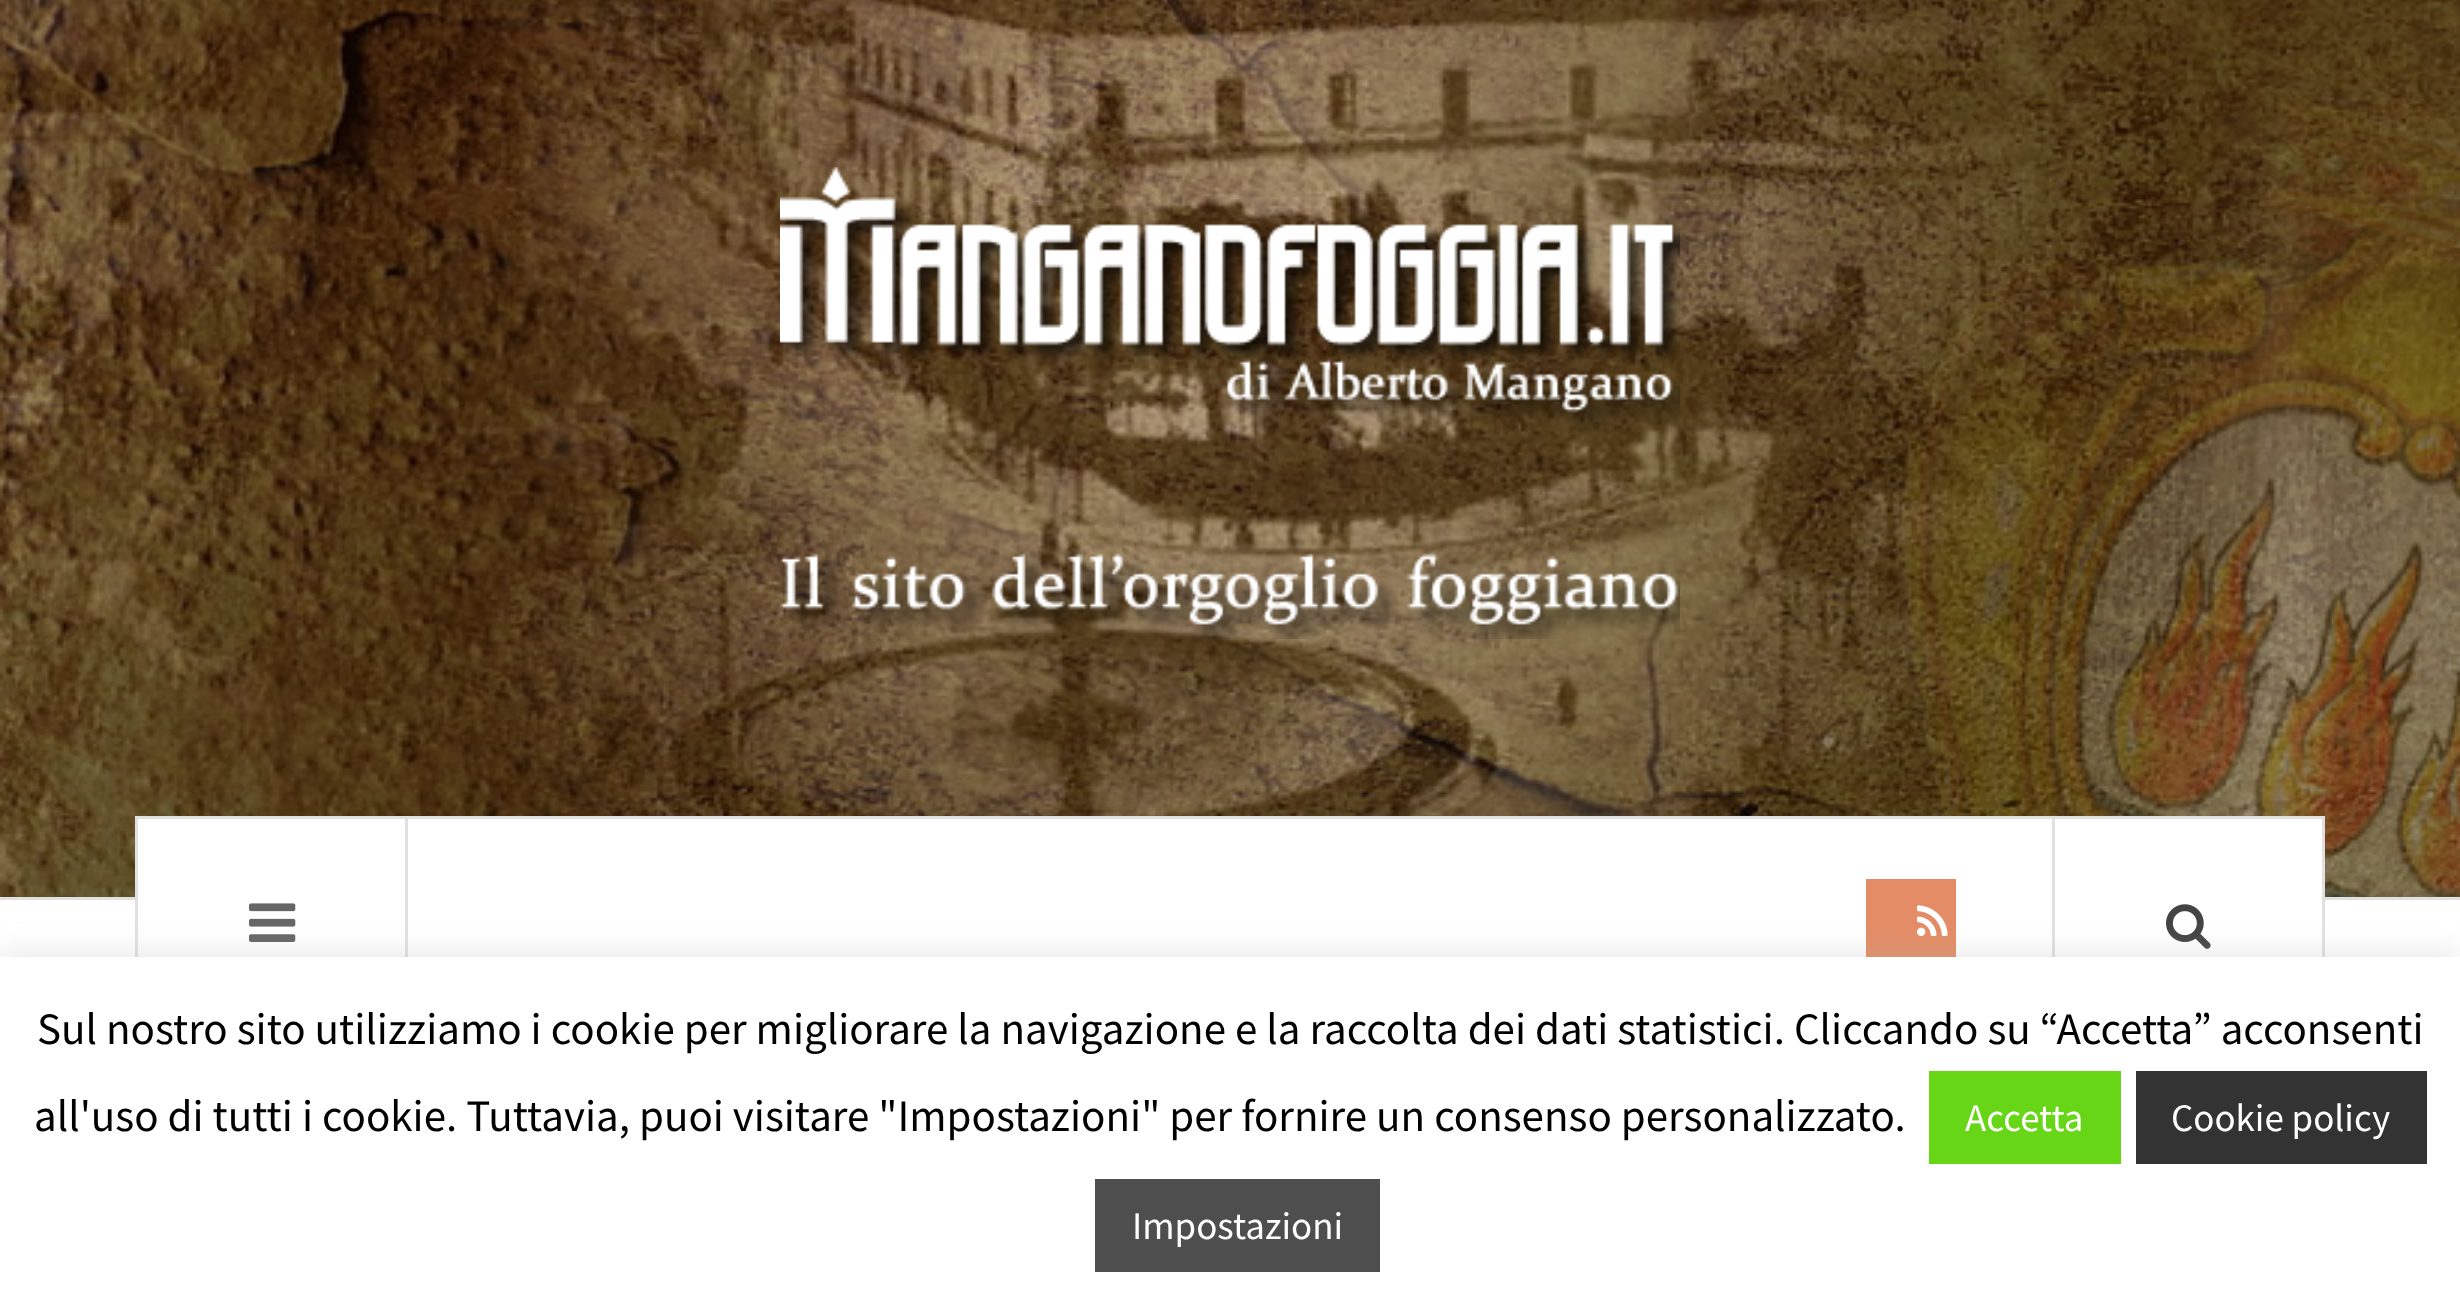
<?xml version="1.0" encoding="UTF-8"?>
<svg xmlns="http://www.w3.org/2000/svg" width="2460" height="1306">
    <defs>
        <filter id="blur1" x="-50%" y="-200%" width="200%" height="500%"><feGaussianBlur stdDeviation="15"/></filter>
    </defs>
    <rect width="100%" height="100%" fill="#FFFFFF"/>
    <image x="0" y="0" width="2460" height="897" href="img_01.png"/>
    <rect x="0" y="897" width="2460" height="3" fill="#E1E1E1"/>
    <image x="780" y="166" width="900" height="473" href="img_02.png"/>
    <rect x="138" y="819" width="2184" height="81" fill="#FFFFFF"/>
    <rect x="136.5" y="817.5" width="2187" height="207" fill="none" stroke="#E1E1E1" stroke-width="3"/>
    <rect x="405" y="819" width="3" height="138" fill="#E1E1E1"/>
    <image x="249" y="903" width="47" height="39" href="img_03.png"/>
    <rect x="1866" y="879" width="90" height="78" fill="#E38C65"/>
    <image x="1917" y="905" width="31" height="31" href="img_04.png"/>
    <rect x="2052" y="819" width="3" height="138" fill="#E1E1E1"/>
    <image x="2166" y="904" width="45" height="45" href="img_05.png"/>
    <rect x="0" y="954" width="2460" height="351" fill="#ACABAB" fill-opacity="0.3" filter="url(#blur1)"/>
    <rect x="0" y="957" width="2460" height="349" fill="#FFFFFF"/>
    <text x="37" y="1044" font-family="Source Sans Pro" font-size="45" fill="#000000">Sul nostro sito utilizziamo i cookie per migliorare la navigazione e la raccolta dei dati statistici. Cliccando su “Accetta” acconsenti</text>
    <text x="34" y="1131" font-family="Source Sans Pro" font-size="45" fill="#000000">all'uso di tutti i cookie. Tuttavia, puoi visitare "Impostazioni" per fornire un consenso personalizzato.</text>
    <rect x="1929" y="1071" width="192" height="93" fill="#66D617"/>
    <text x="1965" y="1131" font-family="Source Sans Pro" font-size="39" fill="#FFFFFF">Accetta</text>
    <rect x="2136" y="1071" width="291" height="93" fill="#333333"/>
    <text x="2171" y="1131" font-family="Source Sans Pro" font-size="39" fill="#FFFFFF">Cookie policy</text>
    <rect x="1095" y="1179" width="285" height="93" fill="#4F4E4E"/>
    <text x="1132" y="1239" font-family="Source Sans Pro" font-size="39" fill="#FFFFFF">Impostazioni</text>
</svg>
